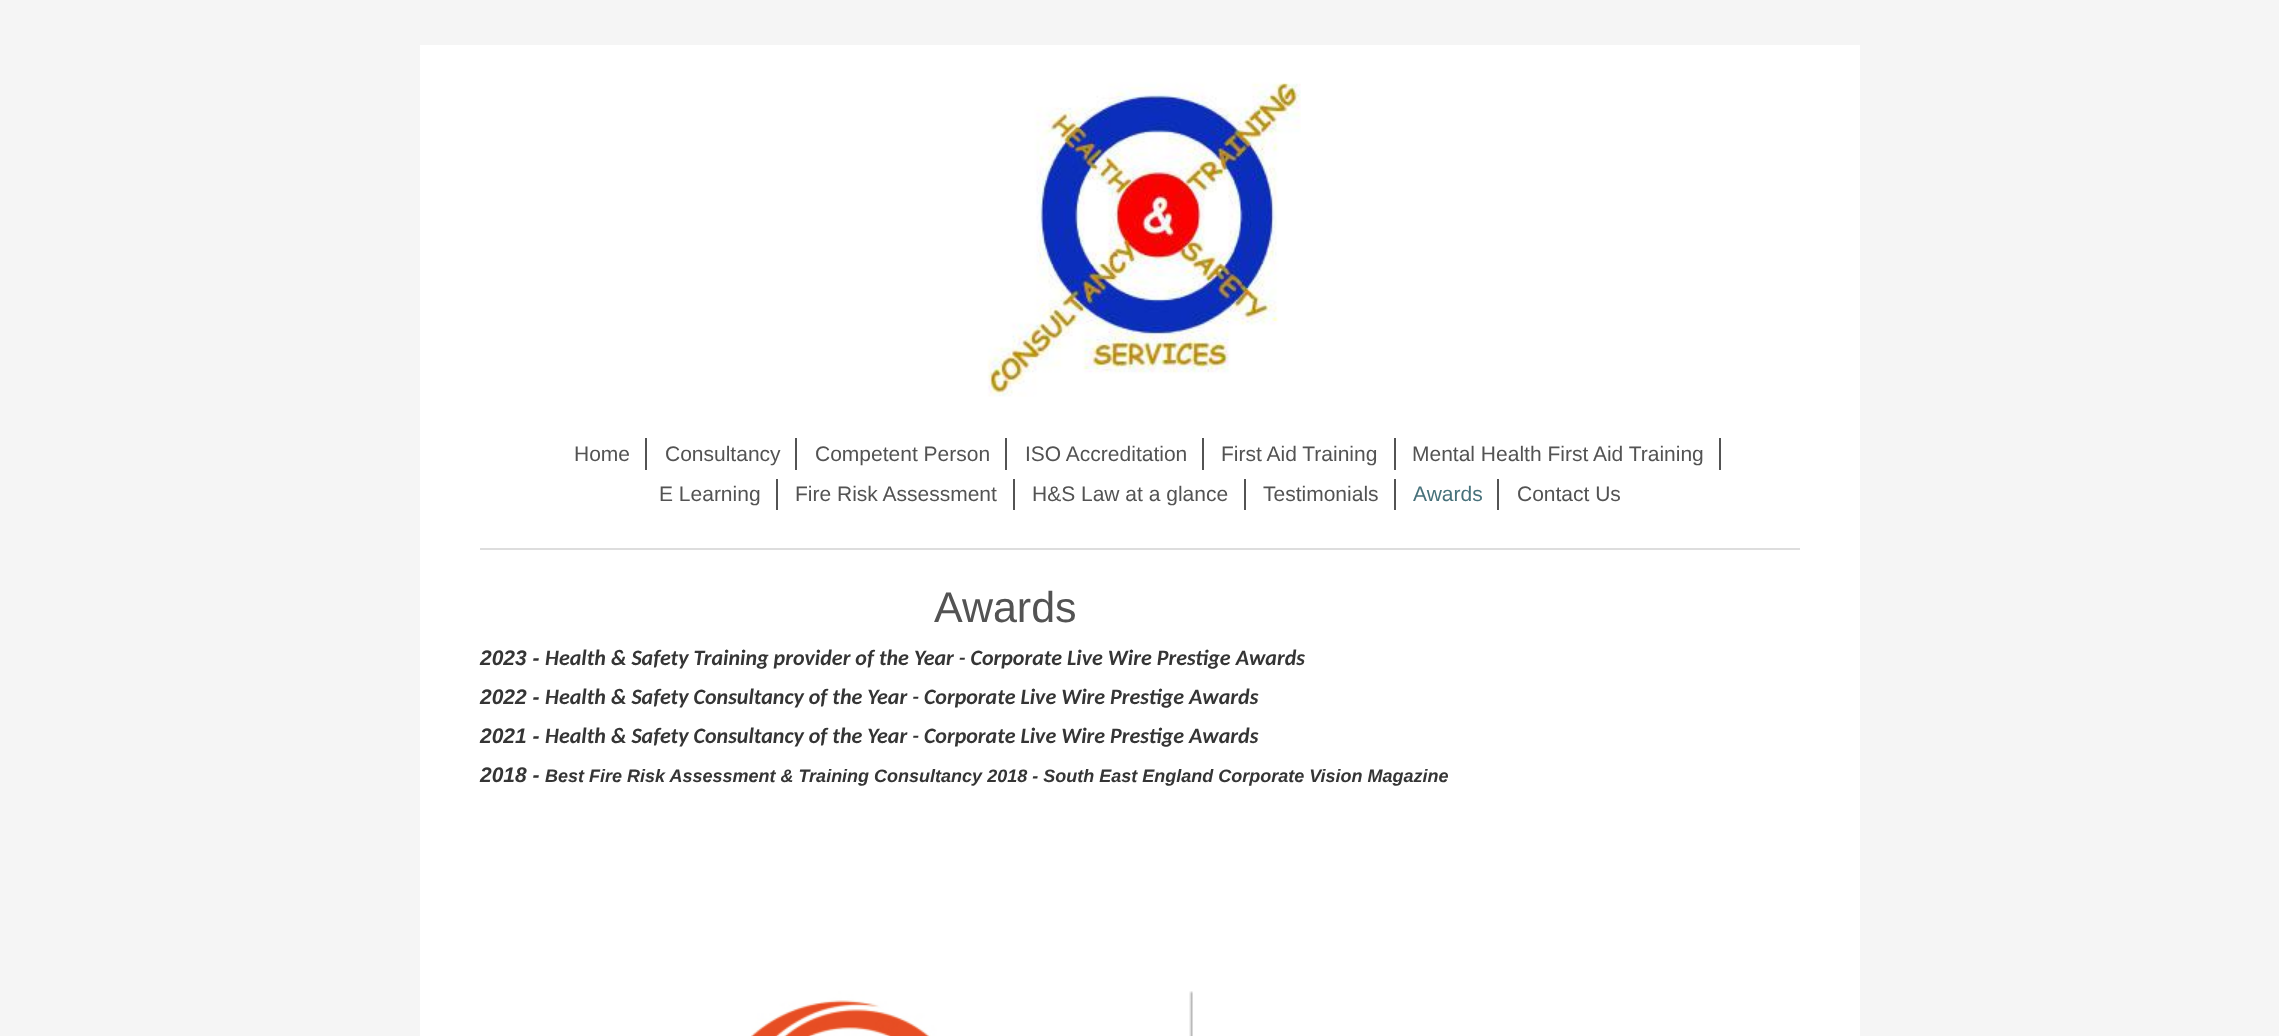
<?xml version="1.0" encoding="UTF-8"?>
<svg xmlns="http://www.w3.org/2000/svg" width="2279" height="1036">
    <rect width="100%" height="100%" fill="#F5F5F5"/>
    <rect x="420" y="45" width="1440" height="991" fill="#FFFFFF"/>
    <image x="987" y="82" width="314" height="315" href="img_01.png"/>
    <rect x="480" y="548" width="1320" height="2" fill="#DDDDDD"/>
    <rect x="645" y="438" width="2" height="32" fill="#535353"/>
    <text x="574" y="461" font-family="Liberation Sans" font-size="21" fill="#535353">Home</text>
    <rect x="795" y="438" width="2" height="32" fill="#535353"/>
    <text x="665" y="461" font-family="Liberation Sans" font-size="21" fill="#535353">Consultancy</text>
    <rect x="1005" y="438" width="2" height="32" fill="#535353"/>
    <text x="815" y="461" font-family="Liberation Sans" font-size="21" fill="#535353">Competent Person</text>
    <rect x="1202" y="438" width="2" height="32" fill="#535353"/>
    <text x="1025" y="461" font-family="Liberation Sans" font-size="21" fill="#535353">ISO Accreditation</text>
    <rect x="1394" y="438" width="2" height="32" fill="#535353"/>
    <text x="1221" y="461" font-family="Liberation Sans" font-size="21" fill="#535353">First Aid Training</text>
    <rect x="1719" y="438" width="2" height="32" fill="#535353"/>
    <text x="1412" y="461" font-family="Liberation Sans" font-size="21" fill="#535353">Mental Health First Aid Training</text>
    <rect x="776" y="479" width="2" height="31" fill="#535353"/>
    <text x="659" y="501" font-family="Liberation Sans" font-size="21" fill="#535353">E Learning</text>
    <rect x="1013" y="479" width="2" height="31" fill="#535353"/>
    <text x="795" y="501" font-family="Liberation Sans" font-size="21" fill="#535353">Fire Risk Assessment</text>
    <rect x="1244" y="479" width="2" height="31" fill="#535353"/>
    <text x="1032" y="501" font-family="Liberation Sans" font-size="21" fill="#535353">H&amp;S Law at a glance</text>
    <rect x="1394" y="479" width="2" height="31" fill="#535353"/>
    <text x="1263" y="501" font-family="Liberation Sans" font-size="21" fill="#535353">Testimonials</text>
    <rect x="1497" y="479" width="2" height="31" fill="#535353"/>
    <text x="1413" y="501" font-family="Liberation Sans" font-size="21" fill="#47717A">Awards</text>
    <text x="1517" y="501" font-family="Liberation Sans" font-size="21" fill="#535353">Contact Us</text>
    <text x="934" y="622" font-family="Liberation Sans" font-size="43" fill="#535353">Awards</text>
    <text x="480" y="665" font-family="Liberation Sans" font-size="21" font-weight="700" font-style="italic" fill="#353535">2023 -</text>
    <text x="545" y="665" font-family="Carlito" font-size="22" font-weight="700" font-style="italic" fill="#353535">Health &amp; Safety Training provider of the Year - Corporate Live Wire Prestige Awards</text>
    <text x="480" y="704" font-family="Liberation Sans" font-size="21" font-weight="700" font-style="italic" fill="#353535">2022 -</text>
    <text x="545" y="704" font-family="Carlito" font-size="22" font-weight="700" font-style="italic" fill="#353535">Health &amp; Safety Consultancy of the Year - Corporate Live Wire Prestige Awards</text>
    <text x="480" y="743" font-family="Liberation Sans" font-size="21" font-weight="700" font-style="italic" fill="#353535">2021 -</text>
    <text x="545" y="743" font-family="Carlito" font-size="22" font-weight="700" font-style="italic" fill="#353535">Health &amp; Safety Consultancy of the Year - Corporate Live Wire Prestige Awards</text>
    <text x="480" y="782" font-family="Liberation Sans" font-size="21" font-weight="700" font-style="italic" fill="#353535">2018 -</text>
    <text x="545" y="782" font-family="Liberation Sans" font-size="18" font-weight="700" font-style="italic" fill="#353535">Best Fire Risk Assessment &amp; Training Consultancy 2018 - South East England Corporate Vision Magazine</text>
    <image x="751" y="991" width="442" height="45" href="img_02.png"/>
</svg>
